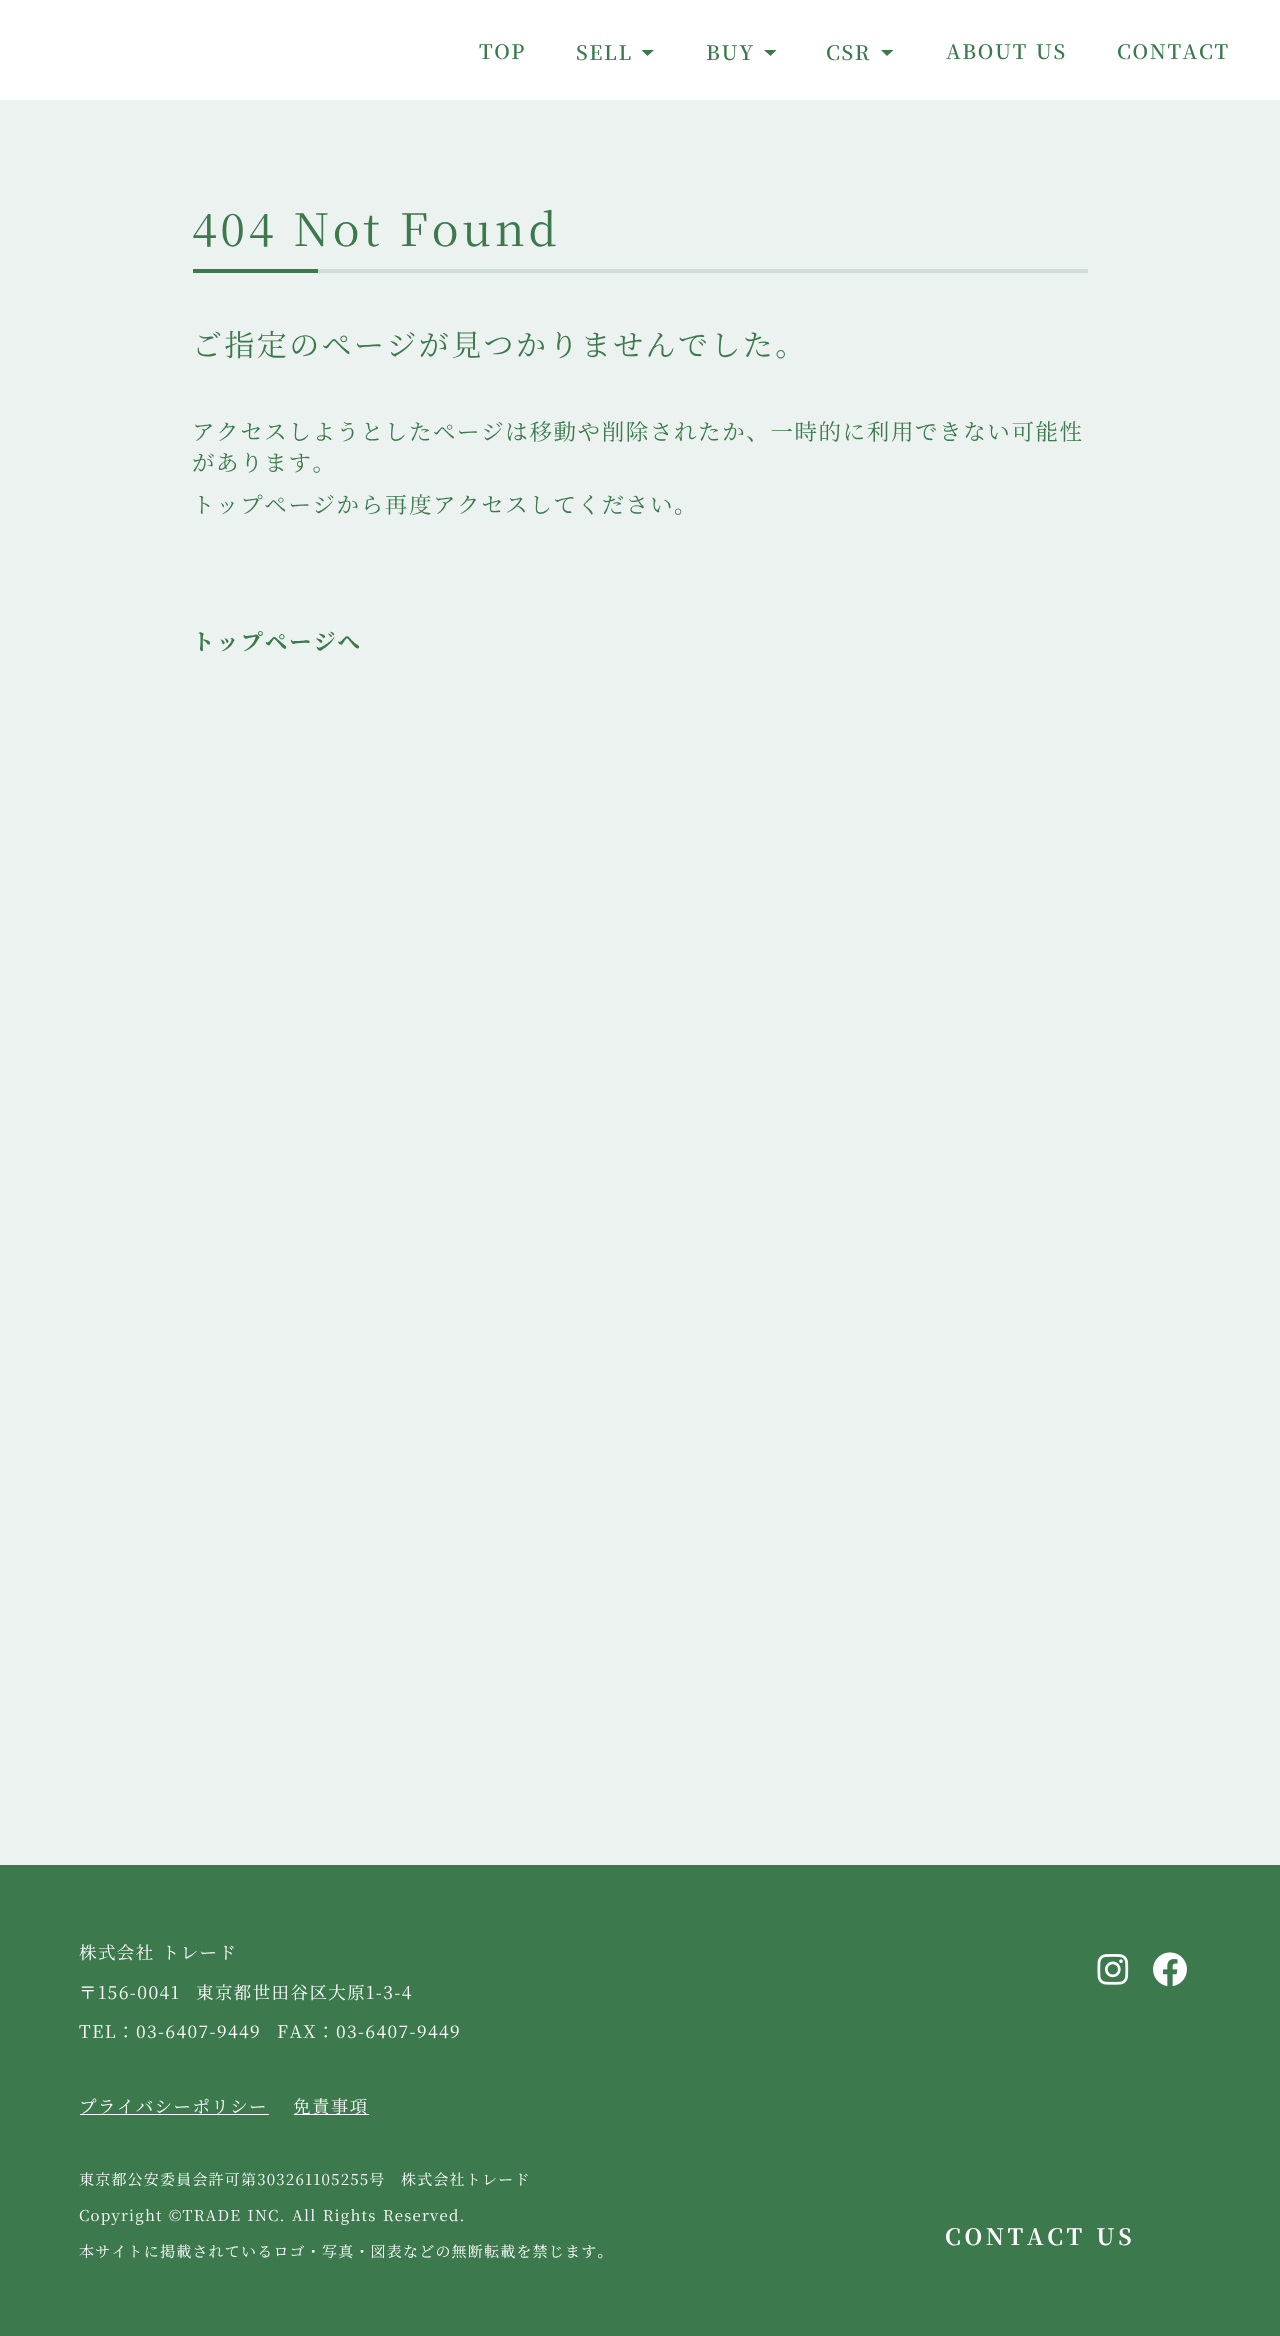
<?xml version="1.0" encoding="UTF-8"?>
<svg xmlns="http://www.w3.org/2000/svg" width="1280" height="2336">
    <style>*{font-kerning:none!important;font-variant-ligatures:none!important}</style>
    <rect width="100%" height="100%" fill="#ECF2EF"/>
    <rect x="0" y="0" width="1280" height="100" fill="#FFFFFF"/>
    <text x="479" y="59" font-family="Noto Serif JP" font-size="20" font-weight="600" letter-spacing="1.6" fill="#3C794D">TOP</text>
    <text x="576" y="60" font-family="Noto Serif JP" font-size="20" font-weight="600" letter-spacing="1.6" fill="#3C794D">SELL</text>
    <path d="M 654 50 L 647.5 56 L 641.5 50 Z" fill="#3C794D"/>
    <text x="706" y="60" font-family="Noto Serif JP" font-size="20" font-weight="600" letter-spacing="1.6" fill="#3C794D">BUY</text>
    <path d="M 776.5 50 L 770.5 56 L 764 50 Z" fill="#3C794D"/>
    <text x="826" y="60" font-family="Noto Serif JP" font-size="20" font-weight="600" letter-spacing="1.6" fill="#3C794D">CSR</text>
    <path d="M 893.5 50 L 887 56 L 881 50 Z" fill="#3C794D"/>
    <text x="946" y="59" word-spacing="1.25" font-family="Noto Serif JP" font-size="20" font-weight="600" letter-spacing="1.6" fill="#3C794D">ABOUT US</text>
    <text x="1117" y="59" font-family="Noto Serif JP" font-size="20" font-weight="600" letter-spacing="1.6" fill="#3C794D">CONTACT</text>
    <text x="192" y="246" word-spacing="1.25" font-family="Noto Serif JP" font-size="45" letter-spacing="3.6" fill="#3C794D">404 Not Found</text>
    <rect x="193" y="269" width="125" height="4" fill="#3C794D"/>
    <rect x="318" y="269" width="770" height="4" fill="#CFDDD2"/>
    <text x="192" y="356" font-family="Noto Serif JP" font-size="30" letter-spacing="2.4" fill="#3C794D">ご指定のページが見つかりませんでした。</text>
    <text font-family="Noto Serif JP" font-size="22.5" letter-spacing="1.6" fill="#3C794D">
        <tspan x="192" y="440">アクセスしようとしたページは移動や削除されたか、一時的に利用できない可能性</tspan>
        <tspan x="192" y="471">があります。</tspan>
        <tspan x="192" y="513">トップページから再度アクセスしてください。</tspan>
    </text>
    <text x="192" y="650" font-family="Noto Serif JP" font-size="22.5" font-weight="700" letter-spacing="1.75" fill="#3C794D">トップページへ</text>
    <rect x="0" y="1865" width="1280" height="471" fill="#3C794D"/>
    <text x="79" y="1959" word-spacing="1.25" font-family="Noto Serif JP" font-size="17.5" letter-spacing="1.4" fill="#FFFFFF">株式会社 トレード</text>
    <text x="79" y="1999" font-family="Noto Serif JP" font-size="17.5" letter-spacing="1.4" fill="#FFFFFF">〒156-0041</text>
    <text x="196" y="1999" font-family="Noto Serif JP" font-size="17.5" letter-spacing="1.4" fill="#FFFFFF">東京都世田谷区大原1-3-4</text>
    <text x="79" y="2038" font-family="Noto Serif JP" font-size="17.5" letter-spacing="1.4" fill="#FFFFFF">TEL：03-6407-9449</text>
    <text x="277" y="2038" font-family="Noto Serif JP" font-size="17.5" letter-spacing="1.4" fill="#FFFFFF">FAX：03-6407-9449</text>
    <text x="79" y="2113" font-family="Noto Serif JP" font-size="17.5" letter-spacing="1.4" fill="#FFFFFF">プライバシーポリシー</text>
    <rect x="80" y="2114" width="189" height="1" fill="#FFFFFF"/>
    <rect x="294" y="2114" width="75" height="1" fill="#FFFFFF"/>
    <text x="293" y="2113" font-family="Noto Serif JP" font-size="17.5" letter-spacing="1.4" fill="#FFFFFF">免責事項</text>
    <text x="79" y="2185" font-family="Noto Serif JP" font-size="15" letter-spacing="1.2" fill="#FFFFFF">東京都公安委員会許可第303261105255号</text>
    <text x="401" y="2185" font-family="Noto Serif JP" font-size="15" letter-spacing="1.2" fill="#FFFFFF">株式会社トレード</text>
    <text x="79" y="2221" word-spacing="1.25" font-family="Noto Serif JP" font-size="15" letter-spacing="1.2" fill="#FFFFFF">Copyright ©TRADE INC. All Rights Reserved.</text>
    <text x="79" y="2257" font-family="Noto Serif JP" font-size="15" letter-spacing="1.2" fill="#FFFFFF">本サイトに掲載されているロゴ・写真・図表などの無断転載を禁じます。</text>
    <image x="1097" y="1954" width="32" height="31" href="img_01.png"/>
    <image x="1153" y="1952" width="34" height="35" href="img_02.png"/>
    <text x="945" y="2245" word-spacing="1.25" font-family="Noto Serif JP" font-size="22.5" font-weight="700" letter-spacing="3.6" fill="#FFFFFF">CONTACT US</text>
</svg>
